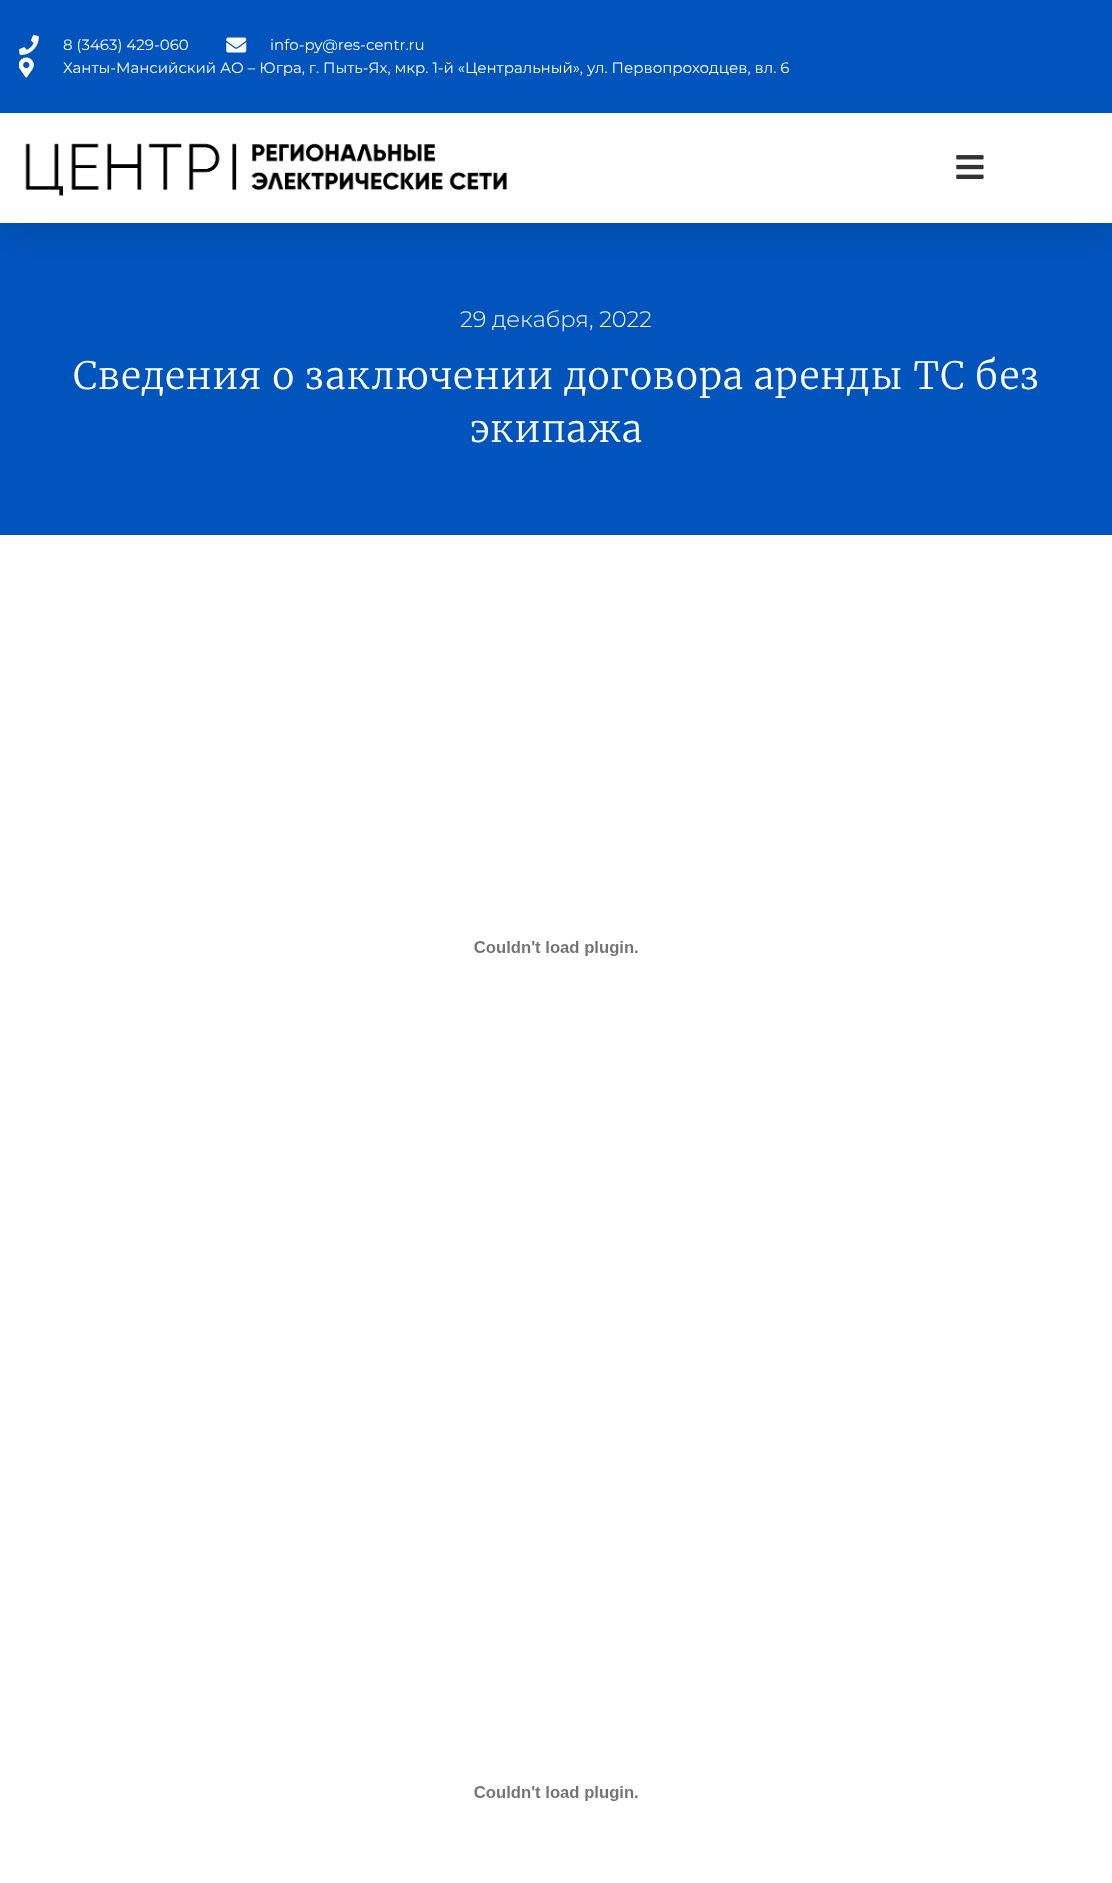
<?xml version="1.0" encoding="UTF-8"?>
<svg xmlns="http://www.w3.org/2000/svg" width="1112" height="1883">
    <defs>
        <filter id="blur1" x="-50%" y="-200%" width="200%" height="500%"><feGaussianBlur stdDeviation="19"/></filter>
    </defs>
    <rect width="100%" height="100%" fill="#FFFFFF"/>
    <rect x="0" y="223" width="1112" height="312" fill="#0054BB"/>
    <rect x="0" y="6" width="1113" height="223" fill="#000000" fill-opacity="0.1" filter="url(#blur1)"/>
    <rect x="0" y="0" width="1112" height="113" fill="#0054BB"/>
    <image x="19" y="35" width="20" height="20" href="img_01.png"/>
    <text x="63" y="50" font-family="Montserrat" font-size="15" fill="#FFFFFF">8 (3463) 429-060</text>
    <image x="226" y="37" width="21" height="16" href="img_02.png"/>
    <text x="270" y="50" font-family="Montserrat" font-size="15" fill="#FFFFFF">info-py@res-centr.ru</text>
    <image x="19" y="57" width="15" height="21" href="img_03.png"/>
    <text x="63" y="73" font-family="Montserrat" font-size="15" fill="#FFFFFF">Ханты-Мансийский АО – Югра, г. Пыть-Ях, мкр. 1-й «Центральный», ул. Первопроходцев, вл. 6</text>
    <rect x="0" y="113" width="1112" height="110" fill="#FFFFFF"/>
    <image x="25" y="143" width="483" height="53" href="img_04.png"/>
    <image x="956" y="155" width="28" height="24" href="img_05.png"/>
    <text x="460" y="327" font-family="Montserrat" font-size="22.5" font-weight="300" fill="#FFFFFF">29 декабря, 2022</text>
    <text x="73" y="389" font-family="Merriweather" font-size="37.5" font-weight="300" letter-spacing="1.25" fill="#FFFFFF">Сведения о заключении договора аренды ТС без</text>
    <text x="470" y="442" font-family="Merriweather" font-size="37.5" font-weight="300" letter-spacing="1.25" fill="#FFFFFF">экипажа</text>
    <image x="474" y="941" width="164" height="15" href="img_06.png"/>
    <image x="474" y="1786" width="164" height="15" href="img_06.png"/>
</svg>
